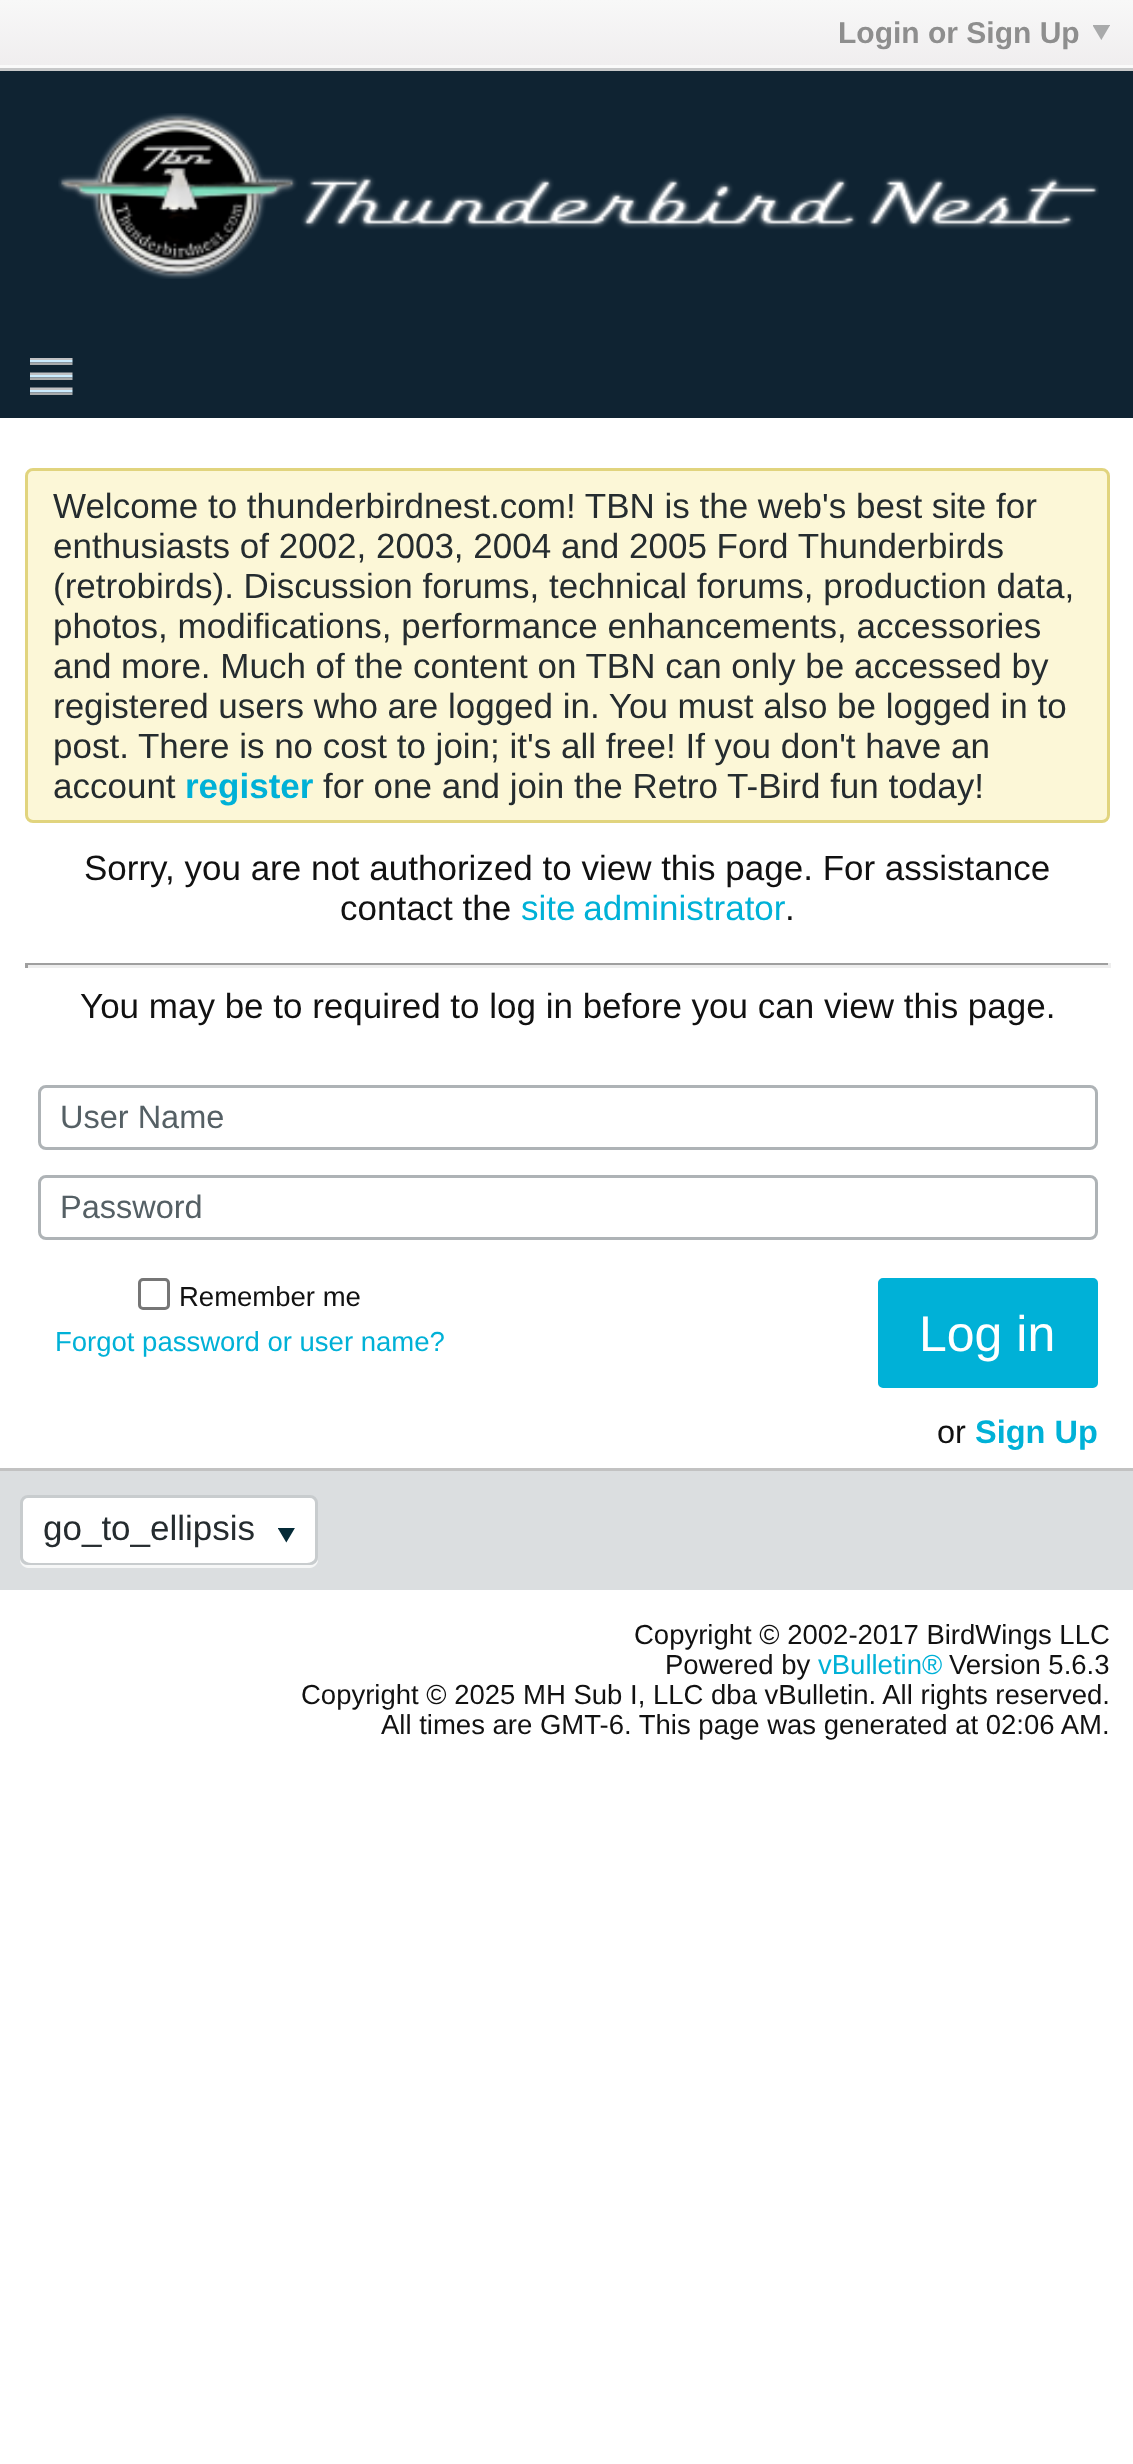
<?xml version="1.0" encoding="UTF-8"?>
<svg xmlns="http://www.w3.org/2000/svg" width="1133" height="2464">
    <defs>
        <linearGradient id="g1" gradientUnits="userSpaceOnUse" x1="568" y1="0" x2="568" y2="70"><stop offset="0" stop-color="#F8F8F8"/><stop offset="1" stop-color="#EFEDEE"/></linearGradient>
    </defs>
    <rect width="100%" height="100%" fill="#FFFFFF"/>
    <rect x="0" y="0" width="1133" height="65" fill="url(#g1)"/>
    <text x="838" y="43" font-family="Liberation Sans" font-size="30" font-weight="700" fill="#8E8E8E">Login or Sign Up</text>
    <image x="1093" y="25" width="17" height="15" href="img_01.png"/>
    <rect x="0" y="65" width="1133" height="3" fill="#FAFAFA"/>
    <rect x="0" y="68" width="1133" height="3" fill="#C7C8C9"/>
    <rect x="0" y="71" width="1133" height="347" fill="#0F2332"/>
    <image x="58" y="113" width="1041" height="166" href="img_02.png"/>
    <image x="30" y="358" width="43" height="37" href="img_03.png"/>
    <rect x="26.5" y="469.5" width="1082" height="352" rx="6.5" fill="#FCF7D7" stroke="#E1D47E" stroke-width="3"/>
    <text font-family="Liberation Sans" font-size="35" fill="#252C2F">
        <tspan x="53" y="518">Welcome to thunderbirdnest.com! TBN is the web's best site for</tspan>
        <tspan x="53" y="558">enthusiasts of 2002, 2003, 2004 and 2005 Ford Thunderbirds</tspan>
        <tspan x="53" y="598">(retrobirds). Discussion forums, technical forums, production data,</tspan>
        <tspan x="53" y="638">photos, modifications, performance enhancements, accessories</tspan>
        <tspan x="53" y="678">and more. Much of the content on TBN can only be accessed by</tspan>
        <tspan x="53" y="718">registered users who are logged in. You must also be logged in to</tspan>
        <tspan x="53" y="758">post. There is no cost to join; it's all free! If you don't have an</tspan>
        <tspan x="53" y="798">account</tspan>
    </text>
    <text x="185" y="798" font-family="Liberation Sans" font-size="35" font-weight="700" fill="#00B1D7">register</text>
    <text x="323" y="798" font-family="Liberation Sans" font-size="35" fill="#252C2F">for one and join the Retro T-Bird fun today!</text>
    <text x="84" y="880" font-family="Liberation Sans" font-size="35" fill="#111111">Sorry, you are not authorized to view this page. For assistance</text>
    <text x="340" y="920" font-family="Liberation Sans" font-size="35" fill="#111111">contact the</text>
    <text x="521" y="920" word-spacing="-2" font-family="Liberation Sans" font-size="35" fill="#00B1D7">site administrator</text>
    <text x="785" y="920" font-family="Liberation Sans" font-size="35" fill="#111111">.</text>
    <rect x="25" y="963" width="1085" height="2" fill="#9F9F9F"/>
    <rect x="1108" y="963" width="3" height="5" fill="#EEEEEE"/>
    <rect x="25" y="965" width="1085" height="3" fill="#EEEEEE"/>
    <rect x="25" y="963" width="3" height="5" fill="#9F9F9F"/>
    <text x="80" y="1018" font-family="Liberation Sans" font-size="35" fill="#111111">You may be to required to log in before you can view this page.</text>
    <rect x="39.5" y="1086.5" width="1057" height="62" rx="6.5" fill="none" stroke="#AEB3B6" stroke-width="3"/>
    <text x="60" y="1128" font-family="Liberation Sans" font-size="32.5" fill="#556065">User Name</text>
    <rect x="39.5" y="1176.5" width="1057" height="62" rx="6.5" fill="none" stroke="#AEB3B6" stroke-width="3"/>
    <text x="60" y="1218" font-family="Liberation Sans" font-size="32.5" fill="#556065">Password</text>
    <rect x="139.5" y="1279.5" width="29" height="29" rx="3.5" fill="none" stroke="#767676" stroke-width="3"/>
    <text x="179" y="1306" font-family="Liberation Sans" font-size="27.5" fill="#111111">Remember me</text>
    <text x="55" y="1351" font-family="Liberation Sans" font-size="27.5" fill="#00B1D7">Forgot password or user name?</text>
    <rect x="879.5" y="1279.5" width="217" height="107" rx="3.5" fill="#00B1D7" stroke="#00B1D7" stroke-width="3"/>
    <text x="919" y="1351" font-family="Liberation Sans" font-size="50" fill="#FFFFFF">Log in</text>
    <text x="937" y="1443" font-family="Liberation Sans" font-size="32.5" fill="#111111">or</text>
    <text x="975" y="1443" font-family="Liberation Sans" font-size="32.5" font-weight="700" fill="#00B1D7">Sign Up</text>
    <rect x="0" y="1471" width="1133" height="119" fill="#DBDEE0"/>
    <rect x="0" y="1468" width="1133" height="3" fill="#C2C2C2"/>
    <path d="M 20 1558 V 1560 C 20 1564 24 1568 28 1568 H 310 C 314 1568 318 1564 318 1560 V 1506 V 1503 V 1558 C 318 1562 314 1565 310 1565 H 28 C 23 1565 20 1562 20 1558 Z" fill="#F6F7F7"/>
    <rect x="21.5" y="1496.5" width="295" height="67" rx="6.5" fill="#FFFFFF" stroke="#C8CCCE" stroke-width="3"/>
    <rect x="23" y="1498" width="292" height="65" rx="8" fill="#FFFFFF"/>
    <text x="43" y="1540" font-family="Liberation Sans" font-size="35" fill="#252C2F">go_to_ellipsis</text>
    <image x="278" y="1528" width="17" height="15" href="img_04.png"/>
    <text x="634" y="1644" font-family="Liberation Sans" font-size="27.5" fill="#111111">Copyright © 2002-2017 BirdWings LLC</text>
    <text x="665" y="1674" font-family="Liberation Sans" font-size="27.5" fill="#111111">Powered by</text>
    <text x="818" y="1674" font-family="Liberation Sans" font-size="27.5" fill="#00B1D7">vBulletin®</text>
    <text x="949" y="1674" font-family="Liberation Sans" font-size="27.5" fill="#111111">Version 5.6.3</text>
    <text x="301" y="1704" font-family="Liberation Sans" font-size="27.5" fill="#111111">Copyright © 2025 MH Sub I, LLC dba vBulletin. All rights reserved.</text>
    <text x="381" y="1734" font-family="Liberation Sans" font-size="27.5" fill="#111111">All times are GMT-6. This page was generated at 02:06 AM.</text>
</svg>
